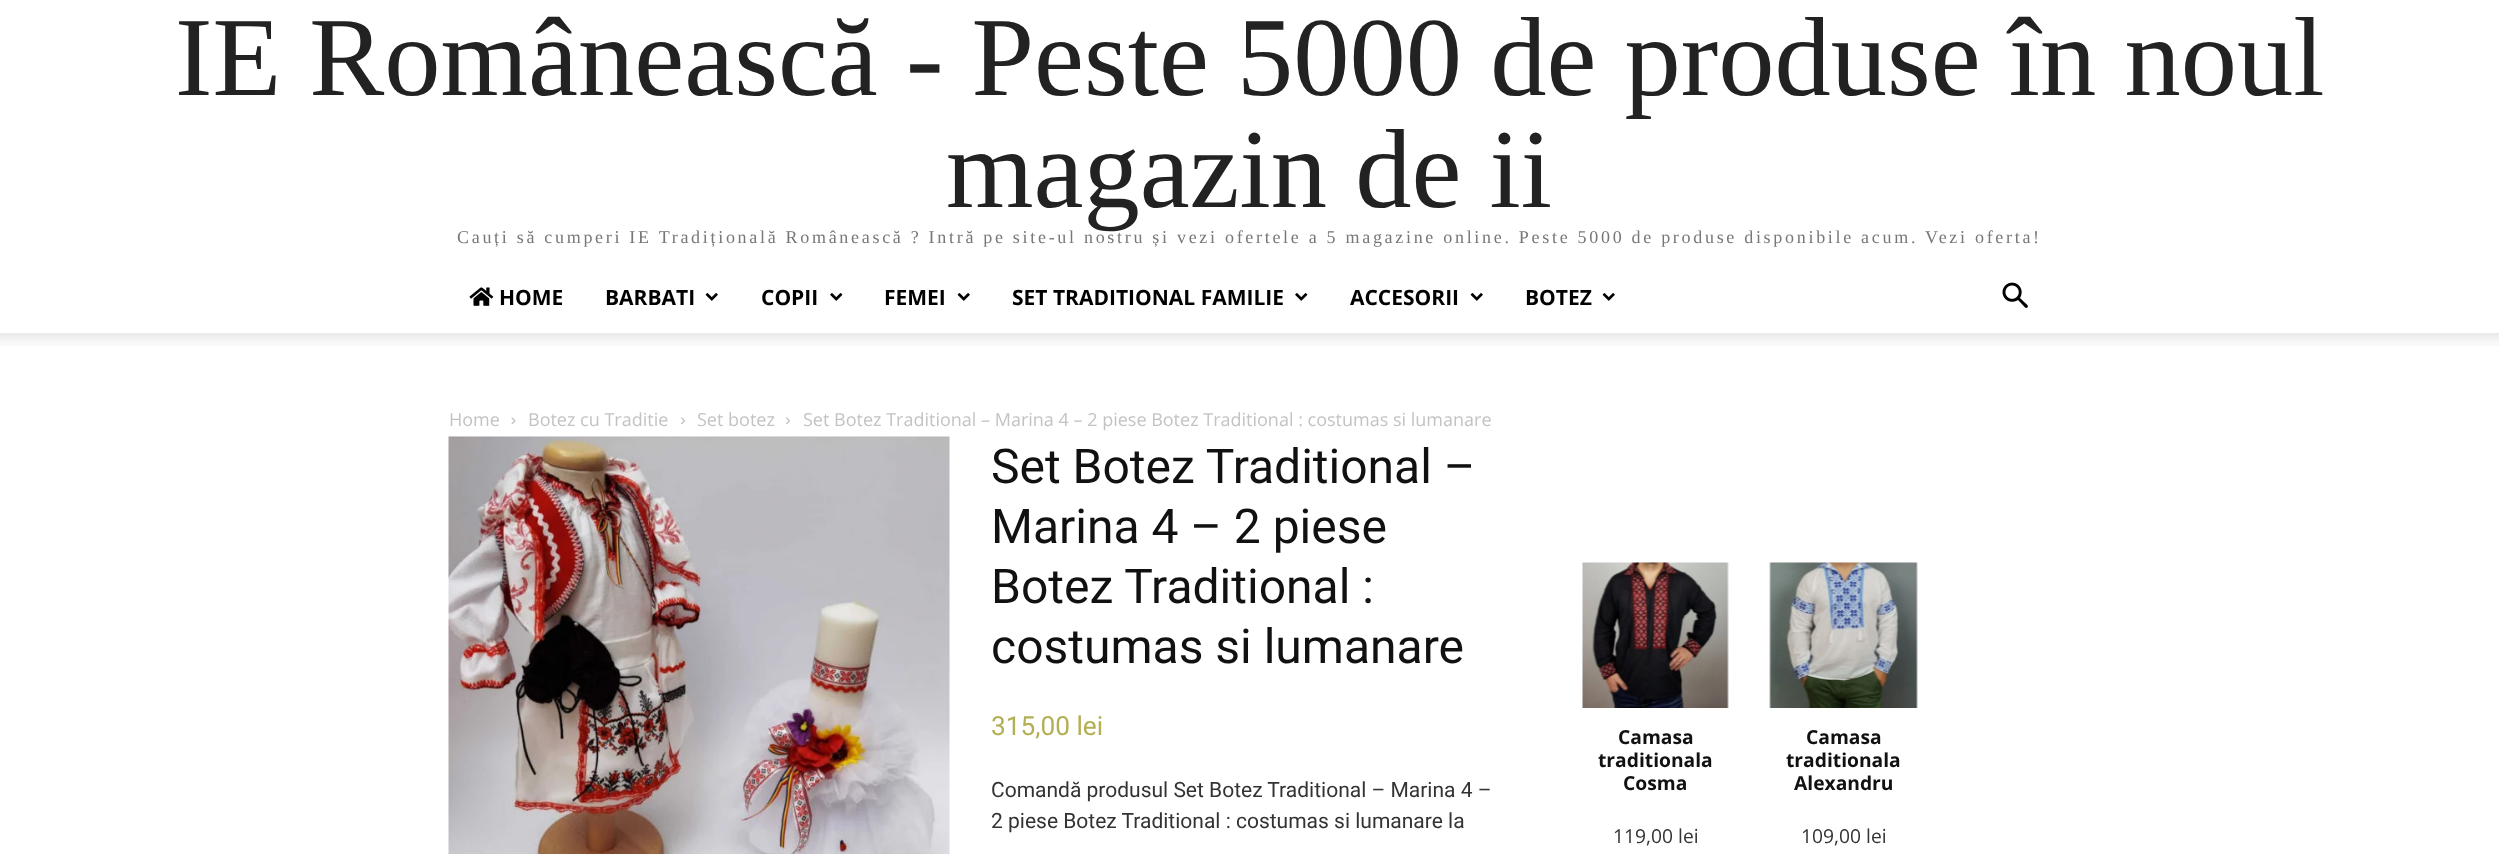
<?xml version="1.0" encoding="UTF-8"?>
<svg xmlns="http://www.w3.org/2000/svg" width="2499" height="854">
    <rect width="100%" height="100%" fill="#FFFFFF"/>
    <text x="175" y="95" font-family="Liberation Serif" font-size="112.5" fill="#222222">IE Românească - Peste 5000 de produse în noul</text>
    <text x="946" y="207" font-family="Liberation Serif" font-size="112.5" fill="#222222">magazin de ii</text>
    <text x="457" y="243" font-family="Liberation Serif" font-size="18" letter-spacing="2.7" fill="#777777">Cauți să cumperi IE Tradițională Românească ? Intră pe site-ul nostru și vezi ofertele a 5 magazine online. Peste 5000 de produse disponibile acum. Vezi oferta!</text>
    <image x="469" y="287" width="25" height="19" href="img_01.png"/>
    <text x="499" y="305" font-family="Open Sans" font-size="21" font-weight="700" fill="#000000">HOME</text>
    <text x="605" y="305" font-family="Open Sans" font-size="21" font-weight="700" fill="#000000">BARBATI</text>
    <image x="705" y="293" width="13" height="8" href="img_02.png"/>
    <text x="761" y="305" font-family="Open Sans" font-size="21" font-weight="700" fill="#000000">COPII</text>
    <image x="830" y="293" width="13" height="8" href="img_03.png"/>
    <text x="884" y="305" font-family="Open Sans" font-size="21" font-weight="700" fill="#000000">FEMEI</text>
    <image x="957" y="293" width="13" height="8" href="img_02.png"/>
    <text x="1012" y="305" font-family="Open Sans" font-size="21" font-weight="700" fill="#000000">SET TRADITIONAL FAMILIE</text>
    <image x="1295" y="293" width="13" height="8" href="img_03.png"/>
    <text x="1350" y="305" font-family="Open Sans" font-size="21" font-weight="700" fill="#000000">ACCESORII</text>
    <image x="1470" y="293" width="13" height="8" href="img_02.png"/>
    <text x="1525" y="305" font-family="Open Sans" font-size="21" font-weight="700" fill="#000000">BOTEZ</text>
    <image x="1602" y="293" width="13" height="8" href="img_02.png"/>
    <image x="2002" y="282" width="26" height="26" href="img_04.png"/>
    <image x="0" y="333" width="2499" height="13" href="img_05.png"/>
    <text x="449" y="426" font-family="Open Sans" font-size="18" fill="#C3C3C3">Home</text>
    <image x="511" y="417" width="5" height="8" href="img_06.png"/>
    <text x="528" y="426" font-family="Open Sans" font-size="18" fill="#C3C3C3">Botez cu Traditie</text>
    <image x="681" y="417" width="4" height="8" href="img_07.png"/>
    <text x="697" y="426" font-family="Open Sans" font-size="18" fill="#C3C3C3">Set botez</text>
    <image x="786" y="417" width="4" height="8" href="img_07.png"/>
    <text x="803" y="426" font-family="Open Sans" font-size="18" fill="#C3C3C3">Set Botez Traditional – Marina 4 – 2 piese Botez Traditional : costumas si lumanare</text>
    <image x="448" y="436" width="502" height="418" href="img_08.png"/>
    <text font-family="Roboto" font-size="48" fill="#111111">
        <tspan x="991" y="483">Set Botez Traditional –</tspan>
        <tspan x="991" y="543">Marina 4 – 2 piese</tspan>
        <tspan x="991" y="603">Botez Traditional :</tspan>
        <tspan x="991" y="663">costumas si lumanare</tspan>
    </text>
    <text x="991" y="735" font-family="Roboto" font-size="26.25" fill="#B3AF54">315,00 lei</text>
    <text font-family="Roboto" font-size="21" fill="#333333">
        <tspan x="991" y="797">Comandă produsul Set Botez Traditional – Marina 4 –</tspan>
        <tspan x="991" y="828">2 piese Botez Traditional : costumas si lumanare la</tspan>
    </text>
    <image x="1582" y="562" width="147" height="146" href="img_09.png"/>
    <text x="1618" y="744" font-family="Open Sans" font-size="19.25" font-weight="700" fill="#111111">Camasa</text>
    <text x="1598" y="767" font-family="Open Sans" font-size="19.25" font-weight="700" fill="#111111">traditionala</text>
    <text x="1623" y="790" font-family="Open Sans" font-size="19.25" font-weight="700" fill="#111111">Cosma</text>
    <text x="1613" y="843" font-family="Open Sans" font-size="19.25" fill="#333333">119,00 lei</text>
    <image x="1769" y="562" width="149" height="146" href="img_10.png"/>
    <text x="1806" y="744" font-family="Open Sans" font-size="19.25" font-weight="700" fill="#111111">Camasa</text>
    <text x="1786" y="767" font-family="Open Sans" font-size="19.25" font-weight="700" fill="#111111">traditionala</text>
    <text x="1794" y="790" font-family="Open Sans" font-size="19.25" font-weight="700" fill="#111111">Alexandru</text>
    <text x="1801" y="843" font-family="Open Sans" font-size="19.25" fill="#333333">109,00 lei</text>
</svg>
